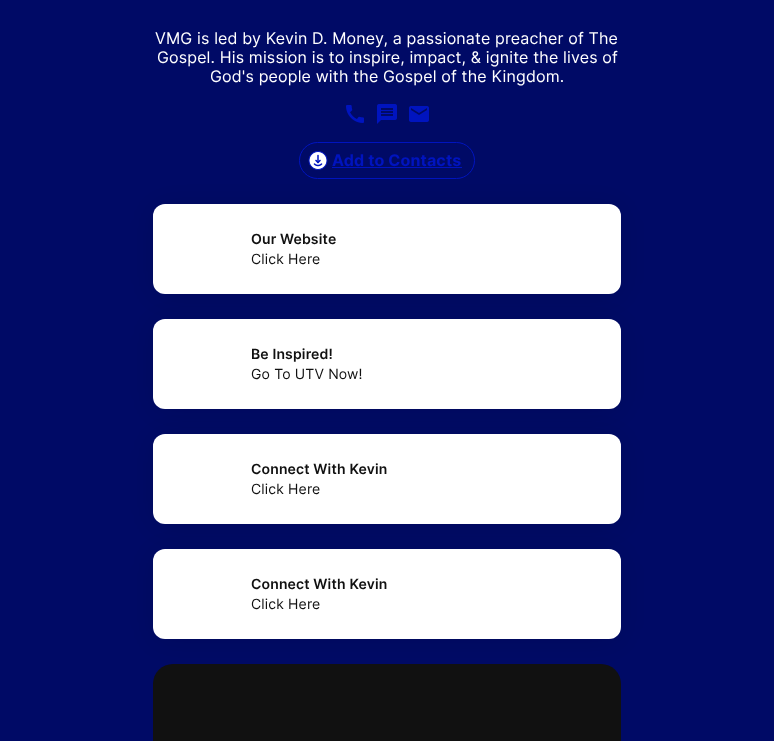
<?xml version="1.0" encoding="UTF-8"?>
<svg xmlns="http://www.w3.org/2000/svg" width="774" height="741">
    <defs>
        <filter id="blur1" x="-50%" y="-200%" width="200%" height="500%"><feGaussianBlur stdDeviation="15"/></filter>
    </defs>
    <rect width="100%" height="100%" fill="#000A66"/>
    <text x="155" y="44" font-family="Inter" font-size="16" letter-spacing="0.15" fill="#FFFFFF">VMG is led by Kevin D. Money, a passionate preacher of The</text>
    <text x="157" y="63" font-family="Inter" font-size="16" letter-spacing="0.15" fill="#FFFFFF">Gospel. His mission is to inspire, impact, &amp; ignite the lives of</text>
    <text x="210" y="82" font-family="Inter" font-size="16" letter-spacing="0.15" fill="#FFFFFF">God's people with the Gospel of the Kingdom.</text>
    <image x="346" y="105" width="18" height="18" href="img_01.png"/>
    <image x="377" y="104" width="20" height="20" href="img_02.png"/>
    <image x="409" y="106" width="20" height="16" href="img_03.png"/>
    <rect x="299.5" y="142.5" width="175" height="36" rx="18" fill="none" stroke="#0014BF"/>
    <image x="308" y="151" width="20" height="19" href="img_04.png"/>
    <text x="332" y="166" font-family="Inter" font-size="16" font-weight="700" letter-spacing="0.15" fill="#0014BF">Add to Contacts</text>
    <rect x="332" y="167" width="130" height="1" fill="#0014BF"/>
    <rect x="153" y="207" width="468" height="90" rx="12" fill="#000000" fill-opacity="0.1" filter="url(#blur1)"/>
    <rect x="153" y="204" width="468" height="90" rx="12" fill="#FFFFFF"/>
    <text x="251" y="244" font-family="Inter" font-size="14" font-weight="600" letter-spacing="0.15" fill="#111111">Our Website</text>
    <text x="251" y="264" font-family="Inter" font-size="14" letter-spacing="0.15" fill="#111111">Click Here</text>
    <rect x="153" y="322" width="468" height="90" rx="12" fill="#000000" fill-opacity="0.1" filter="url(#blur1)"/>
    <rect x="153" y="319" width="468" height="90" rx="12" fill="#FFFFFF"/>
    <text x="251" y="359" font-family="Inter" font-size="14" font-weight="600" letter-spacing="0.15" fill="#111111">Be Inspired!</text>
    <text x="251" y="379" font-family="Inter" font-size="14" letter-spacing="0.15" fill="#111111">Go To UTV Now!</text>
    <rect x="153" y="437" width="468" height="90" rx="12" fill="#000000" fill-opacity="0.1" filter="url(#blur1)"/>
    <rect x="153" y="434" width="468" height="90" rx="12" fill="#FFFFFF"/>
    <text x="251" y="474" font-family="Inter" font-size="14" font-weight="600" letter-spacing="0.15" fill="#111111">Connect With Kevin</text>
    <text x="251" y="494" font-family="Inter" font-size="14" letter-spacing="0.15" fill="#111111">Click Here</text>
    <rect x="153" y="664" width="468" height="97" rx="20" fill="#111111"/>
    <rect x="153" y="552" width="468" height="90" rx="12" fill="#000000" fill-opacity="0.1" filter="url(#blur1)"/>
    <rect x="153" y="549" width="468" height="90" rx="12" fill="#FFFFFF"/>
    <text x="251" y="589" font-family="Inter" font-size="14" font-weight="600" letter-spacing="0.15" fill="#111111">Connect With Kevin</text>
    <text x="251" y="609" font-family="Inter" font-size="14" letter-spacing="0.15" fill="#111111">Click Here</text>
</svg>
